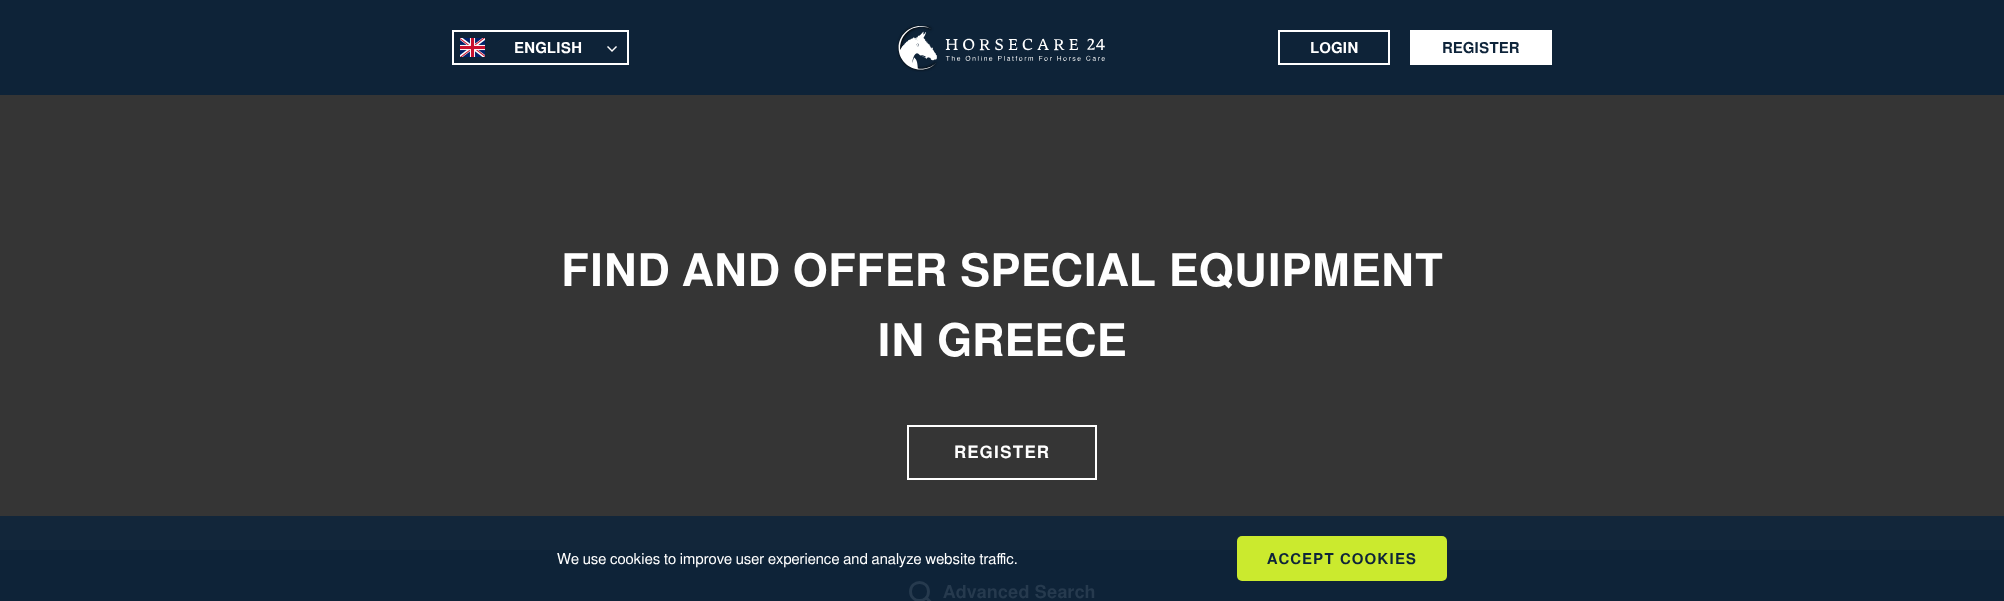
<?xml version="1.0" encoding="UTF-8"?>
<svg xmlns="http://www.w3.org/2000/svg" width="2004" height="601">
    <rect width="100%" height="100%" fill="#0E2338"/>
    <image x="607" y="46" width="10" height="6" href="img_01.png"/>
    <image x="460" y="38" width="25" height="19" href="img_02.png"/>
    <rect x="453" y="31" width="175" height="33" fill="none" stroke="#FFFFFF" stroke-width="2"/>
    <text x="514" y="53" font-family="FreeSans" font-size="15" font-weight="700" fill="#FFFFFF">ENGLISH</text>
    <image x="897" y="25" width="208" height="47" href="img_03.png"/>
    <rect x="1279" y="31" width="110" height="33" fill="none" stroke="#FFFFFF" stroke-width="2"/>
    <text x="1310" y="53" font-family="FreeSans" font-size="15" font-weight="700" fill="#FFFFFF">LOGIN</text>
    <rect x="1410" y="30" width="142" height="35" fill="#FFFFFF"/>
    <text x="1442" y="53" font-family="FreeSans" font-size="15" font-weight="700" fill="#0E243A">REGISTER</text>
    <rect x="0" y="95" width="2004" height="421" fill="#353535"/>
    <rect x="0" y="516" width="2004" height="34" fill="#12263A"/>
    <text x="561" y="286" font-family="FreeSans" font-size="45" font-weight="700" fill="#FFFFFF">FIND AND OFFER SPECIAL EQUIPMENT</text>
    <text x="877" y="356" font-family="FreeSans" font-size="45" font-weight="700" fill="#FFFFFF">IN GREECE</text>
    <rect x="908" y="426" width="188" height="53" fill="none" stroke="#FFFFFF" stroke-width="2"/>
    <text x="954" y="458" font-family="FreeSans" font-size="17" font-weight="700" letter-spacing="1" fill="#FFFFFF">REGISTER</text>
    <path d="M 928.5 591.5 C 928.5 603.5 910.5 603.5 910.5 591.5 C 910.5 579.5 928.5 579.5 928.5 591.5 Z M 930.5 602 L 925.5 597 L 930.5 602" fill="none" stroke="#263A4E" stroke-width="2.9" stroke-linecap="round"/>
    <text x="943" y="598" font-family="FreeSans" font-size="18" font-weight="700" fill="#263A4E">Advanced Search</text>
    <text x="557" y="564" font-family="FreeSans" font-size="15" fill="#FFFFFF">We use cookies to improve user experience and analyze website traffic.</text>
    <rect x="1237" y="536" width="210" height="45" rx="5" fill="#CBEA2E"/>
    <text x="1267" y="564" font-family="FreeSans" font-size="15" font-weight="700" letter-spacing="1" fill="#0E243A">ACCEPT COOKIES</text>
</svg>
